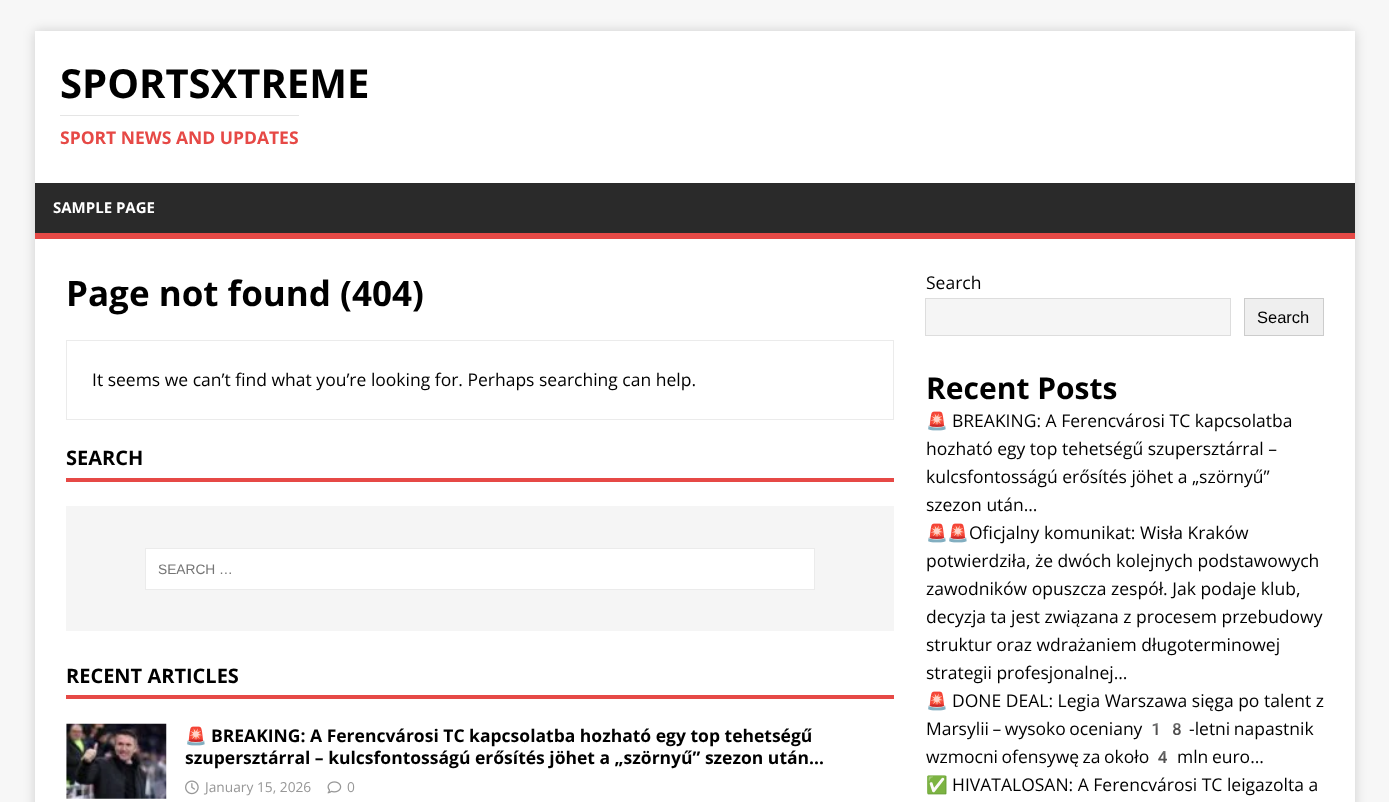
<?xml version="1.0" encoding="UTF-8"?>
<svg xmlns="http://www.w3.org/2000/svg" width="1389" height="802">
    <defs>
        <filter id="blur1" x="-50%" y="-200%" width="200%" height="500%"><feGaussianBlur stdDeviation="6"/></filter>
        <clipPath id="clip1"><rect x="185" y="724" width="709" height="74"/></clipPath>
    </defs>
    <rect width="100%" height="100%" fill="#F7F7F7"/>
    <rect x="35" y="31" width="1320" height="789" fill="#323232" fill-opacity="0.17" filter="url(#blur1)"/>
    <rect x="35" y="31" width="1320" height="152" fill="#FFFFFF"/>
    <text x="60" y="98" font-family="Open Sans" font-size="40" font-weight="700" fill="#000000">SPORTSXTREME</text>
    <rect x="60" y="115" width="239" height="1" fill="#E5E5E5"/>
    <text x="60" y="144" font-family="Open Sans" font-size="17.5" font-weight="700" fill="#E64946">SPORT NEWS AND UPDATES</text>
    <rect x="35" y="183" width="1320" height="50" fill="#2A2A2A"/>
    <rect x="35" y="233" width="1320" height="6" fill="#E64946"/>
    <text x="53" y="213" font-family="Open Sans" font-size="15" font-weight="700" fill="#FFFFFF">SAMPLE PAGE</text>
    <rect x="35" y="239" width="1320" height="563" fill="#FFFFFF"/>
    <text x="66" y="306" font-family="Open Sans" font-size="35" font-weight="700" fill="#000000">Page not found (404)</text>
    <rect x="66.5" y="340.5" width="827" height="79" fill="none" stroke="#EBEBEB"/>
    <text x="92" y="386" font-family="Open Sans" font-size="17.5" fill="#000000">It seems we can’t find what you’re looking for. Perhaps searching can help.</text>
    <rect x="66" y="478" width="828" height="4" fill="#E64946"/>
    <text x="66" y="465" font-family="Open Sans" font-size="20" font-weight="700" fill="#000000">SEARCH</text>
    <rect x="66" y="506" width="828" height="125" fill="#F5F5F5"/>
    <rect x="145.5" y="548.5" width="669" height="41" fill="#FFFFFF" stroke="#EBEBEB"/>
    <text x="158" y="574" font-family="Liberation Sans" font-size="13.75" fill="#757575">SEARCH …</text>
    <rect x="66" y="695" width="828" height="4" fill="#E64946"/>
    <text x="66" y="683" font-family="Open Sans" font-size="20" font-weight="700" fill="#000000">RECENT ARTICLES</text>
    <image x="66" y="723" width="101" height="76" href="img_01.png"/>
    <g clip-path="url(#clip1)">
        <text x="185" y="742" font-family="Noto Color Emoji" font-size="17.5" font-weight="700" fill="#000000">🚨</text>
    </g>
    <text x="211" y="742" font-family="Open Sans" font-size="17.5" font-weight="700" fill="#000000">BREAKING: A Ferencvárosi TC kapcsolatba hozható egy top tehetségű</text>
    <text x="185" y="764" font-family="Open Sans" font-size="17.5" font-weight="700" fill="#000000">szupersztárral – kulcsfontosságú erősítés jöhet a „szörnyű” szezon után…</text>
    <image x="185" y="780" width="14" height="15" href="img_02.png"/>
    <text x="205" y="792" font-family="Open Sans" font-size="13.75" fill="#979797">January 15, 2026</text>
    <image x="327" y="781" width="15" height="13" href="img_03.png"/>
    <text x="347" y="792" font-family="Open Sans" font-size="13.75" fill="#979797">0</text>
    <text x="926" y="289" font-family="Open Sans" font-size="17.5" fill="#000000">Search</text>
    <rect x="925.5" y="298.5" width="305" height="37" fill="#F5F5F5" stroke="#DDDDDD"/>
    <rect x="1244.5" y="298.5" width="79" height="37" fill="#EFEFEF" stroke="#CCCCCC"/>
    <text x="1257" y="323" font-family="Liberation Sans" font-size="16.5" fill="#000000">Search</text>
    <text x="926" y="399" font-family="Open Sans" font-size="30" font-weight="700" fill="#000000">Recent Posts</text>
    <text x="926" y="427" font-family="Noto Color Emoji" font-size="17.5" fill="#000000">🚨</text>
    <text x="952" y="427" font-family="Open Sans" font-size="17.5" fill="#000000">BREAKING: A Ferencvárosi TC kapcsolatba</text>
    <text font-family="Open Sans" font-size="17.5" fill="#000000">
        <tspan x="926" y="455">hozható egy top tehetségű szupersztárral –</tspan>
        <tspan x="926" y="483">kulcsfontosságú erősítés jöhet a „szörnyű”</tspan>
        <tspan x="926" y="511">szezon után…</tspan>
    </text>
    <text x="926" y="539" font-family="Noto Color Emoji" font-size="17.5" fill="#000000">🚨🚨</text>
    <text x="969" y="539" font-family="Open Sans" font-size="17.5" fill="#000000">Oficjalny komunikat: Wisła Kraków</text>
    <text font-family="Open Sans" font-size="17.5" fill="#000000">
        <tspan x="926" y="567">potwierdziła, że dwóch kolejnych podstawowych</tspan>
        <tspan x="926" y="595">zawodników opuszcza zespół. Jak podaje klub,</tspan>
        <tspan x="926" y="623">decyzja ta jest związana z procesem przebudowy</tspan>
        <tspan x="926" y="651">struktur oraz wdrażaniem długoterminowej</tspan>
        <tspan x="926" y="679">strategii profesjonalnej…</tspan>
    </text>
    <text x="926" y="707" font-family="Noto Color Emoji" font-size="17.5" fill="#000000">🚨</text>
    <text x="952" y="707" font-family="Open Sans" font-size="17.5" fill="#000000">DONE DEAL: Legia Warszawa sięga po talent z</text>
    <text x="926" y="735" word-spacing="-1" font-family="Open Sans" font-size="17.5" fill="#000000">Marsylii – wysoko oceniany</text>
    <text x="1145" y="735" font-family="Noto Color Emoji" font-size="17.5" fill="#000000">18</text>
    <text x="1189" y="735" word-spacing="-1" font-family="Open Sans" font-size="17.5" fill="#000000">-letni napastnik</text>
    <text x="926" y="763" word-spacing="-1" font-family="Open Sans" font-size="17.5" fill="#000000">wzmocni ofensywę za około</text>
    <text x="1152" y="763" font-family="Noto Color Emoji" font-size="17.5" fill="#000000">4</text>
    <text x="1177" y="763" word-spacing="-1" font-family="Open Sans" font-size="17.5" fill="#000000">mln euro…</text>
    <text x="926" y="791" font-family="Noto Color Emoji" font-size="17.5" fill="#000000">✅</text>
    <text x="952" y="791" font-family="Open Sans" font-size="17.5" fill="#000000">HIVATALOSAN: A Ferencvárosi TC leigazolta a</text>
</svg>
